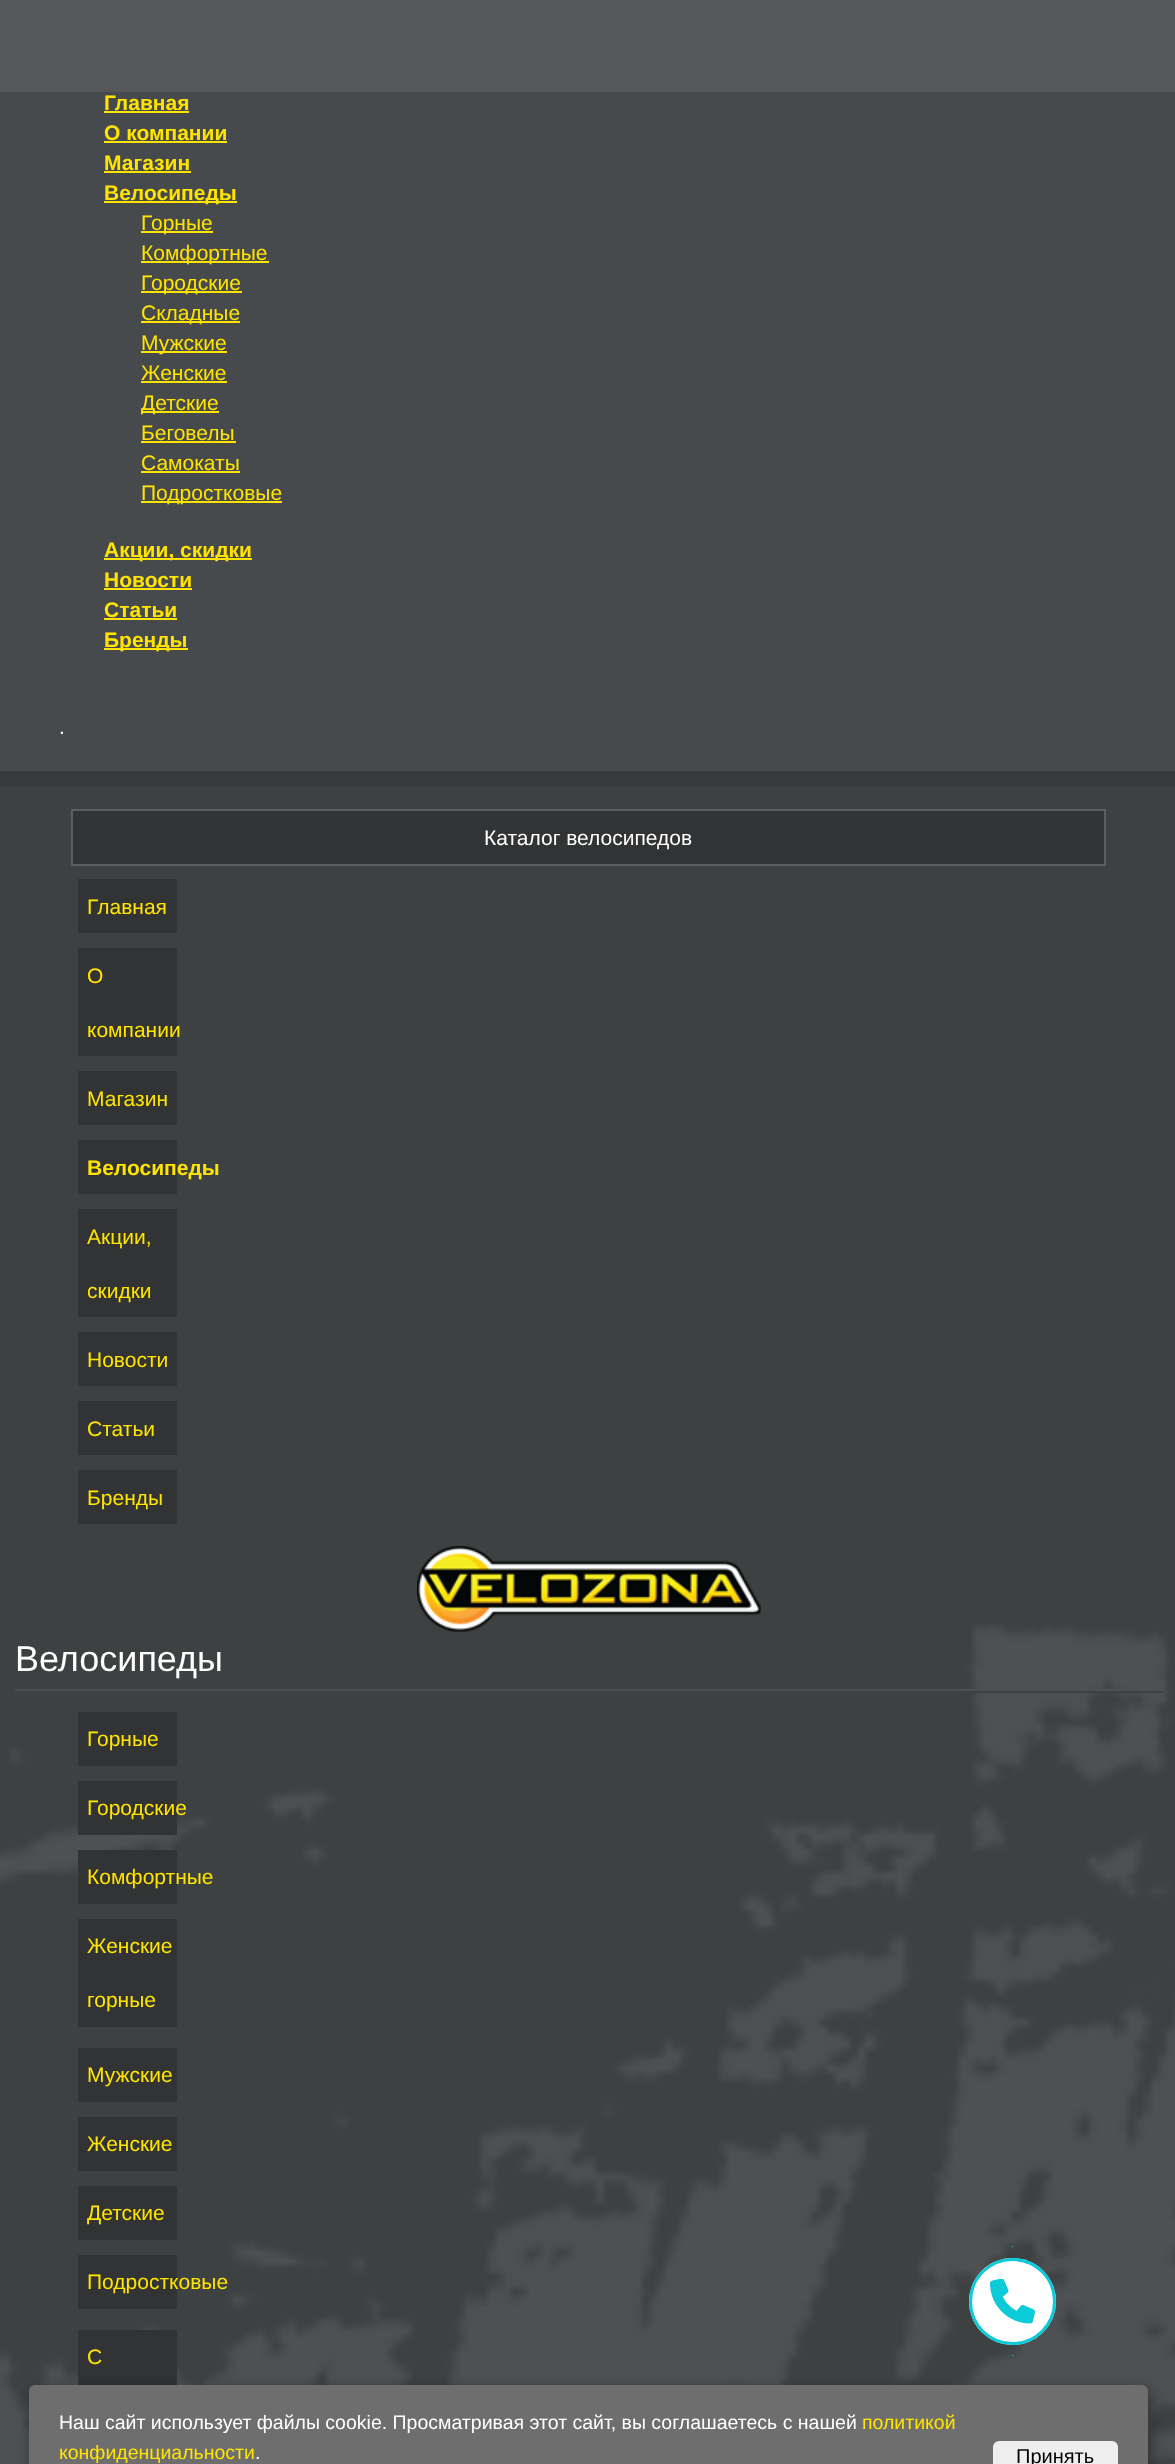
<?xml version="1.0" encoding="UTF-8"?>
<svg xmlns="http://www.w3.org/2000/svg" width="1175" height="2464">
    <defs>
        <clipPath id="clip1"><rect x="957" y="2246" width="56" height="111"/></clipPath>
        <filter id="blur1" x="-50%" y="-200%" width="200%" height="500%"><feGaussianBlur stdDeviation="7.5"/></filter>
    </defs>
    <rect width="100%" height="100%" fill="#474A4C"/>
    <rect x="0" y="0" width="1175" height="92" fill="#555758"/>
    <text x="104" y="110" font-family="Liberation Sans" font-size="21" font-weight="700" fill="#FFE400">Главная</text>
    <rect x="104" y="111" width="85" height="2" fill="#FFE400"/>
    <text x="104" y="140" font-family="Liberation Sans" font-size="21" font-weight="700" fill="#FFE400">О компании</text>
    <rect x="104" y="141" width="123" height="2" fill="#FFE400"/>
    <text x="104" y="170" font-family="Liberation Sans" font-size="21" font-weight="700" fill="#FFE400">Магазин</text>
    <rect x="104" y="171" width="87" height="2" fill="#FFE400"/>
    <rect x="104" y="201" width="133" height="2" fill="#FFE400"/>
    <text x="104" y="200" font-family="Liberation Sans" font-size="21" font-weight="700" fill="#FFE400">Велосипеды</text>
    <rect x="141" y="231" width="72" height="2" fill="#FFE400"/>
    <text x="141" y="230" font-family="Liberation Sans" font-size="21" fill="#FFE400">Горные</text>
    <rect x="141" y="261" width="128" height="2" fill="#FFE400"/>
    <text x="141" y="260" font-family="Liberation Sans" font-size="21" fill="#FFE400">Комфортные</text>
    <rect x="141" y="291" width="101" height="2" fill="#FFE400"/>
    <text x="141" y="290" font-family="Liberation Sans" font-size="21" fill="#FFE400">Городские</text>
    <rect x="141" y="321" width="99" height="2" fill="#FFE400"/>
    <text x="141" y="320" font-family="Liberation Sans" font-size="21" fill="#FFE400">Складные</text>
    <rect x="141" y="351" width="86" height="2" fill="#FFE400"/>
    <text font-family="Liberation Sans" font-size="21" fill="#FFE400">
        <tspan x="141" y="350">Мужские</tspan>
        <tspan x="141" y="380">Женские</tspan>
    </text>
    <rect x="141" y="381" width="86" height="2" fill="#FFE400"/>
    <rect x="141" y="411" width="78" height="2" fill="#FFE400"/>
    <text font-family="Liberation Sans" font-size="21" fill="#FFE400">
        <tspan x="141" y="410">Детские</tspan>
        <tspan x="141" y="440">Беговелы</tspan>
    </text>
    <rect x="141" y="441" width="95" height="2" fill="#FFE400"/>
    <text x="141" y="470" font-family="Liberation Sans" font-size="21" fill="#FFE400">Самокаты</text>
    <rect x="141" y="471" width="99" height="2" fill="#FFE400"/>
    <rect x="141" y="501" width="141" height="2" fill="#FFE400"/>
    <text x="141" y="500" font-family="Liberation Sans" font-size="21" fill="#FFE400">Подростковые</text>
    <rect x="104" y="558" width="148" height="2" fill="#FFE400"/>
    <text font-family="Liberation Sans" font-size="21" font-weight="700" fill="#FFE400">
        <tspan x="104" y="557">Акции, скидки</tspan>
        <tspan x="104" y="587">Новости</tspan>
    </text>
    <rect x="104" y="588" width="88" height="2" fill="#FFE400"/>
    <text x="104" y="617" font-family="Liberation Sans" font-size="21" font-weight="700" fill="#FFE400">Статьи</text>
    <rect x="104" y="618" width="73" height="2" fill="#FFE400"/>
    <rect x="104" y="648" width="84" height="2" fill="#FFE400"/>
    <text x="104" y="647" font-family="Liberation Sans" font-size="21" font-weight="700" fill="#FFE400">Бренды</text>
    <text x="59" y="734" font-family="Liberation Sans" font-size="21" fill="#FFFFFF">.</text>
    <rect x="0" y="786" width="1175" height="1678" fill="#3E4142"/>
    <image x="0" y="1624" width="1175" height="840" href="img_01.png"/>
    <rect x="0" y="771" width="1175" height="15" fill="#383B3C"/>
    <rect x="72" y="810" width="1033" height="55" fill="#313334" stroke="#5C5E5F" stroke-width="2"/>
    <text x="484" y="845" font-family="Liberation Sans" font-size="21" fill="#FFFFFF">Каталог велосипедов</text>
    <rect x="78" y="879" width="99" height="54" fill="#313334"/>
    <text x="87" y="914" font-family="Liberation Sans" font-size="21" fill="#FFE400">Главная</text>
    <rect x="78" y="948" width="99" height="108" fill="#313334"/>
    <text x="87" y="983" font-family="Liberation Sans" font-size="21" fill="#FFE400">О</text>
    <text x="87" y="1037" font-family="Liberation Sans" font-size="21" fill="#FFE400">компании</text>
    <rect x="78" y="1071" width="99" height="54" fill="#313334"/>
    <text x="87" y="1106" font-family="Liberation Sans" font-size="21" fill="#FFE400">Магазин</text>
    <rect x="78" y="1140" width="99" height="54" fill="#313334"/>
    <text x="87" y="1175" font-family="Liberation Sans" font-size="21" font-weight="700" fill="#FFE400">Велосипеды</text>
    <rect x="78" y="1209" width="99" height="108" fill="#313334"/>
    <text x="87" y="1244" font-family="Liberation Sans" font-size="21" fill="#FFE400">Акции,</text>
    <text x="87" y="1298" font-family="Liberation Sans" font-size="21" fill="#FFE400">скидки</text>
    <rect x="78" y="1332" width="99" height="54" fill="#313334"/>
    <text x="87" y="1367" font-family="Liberation Sans" font-size="21" fill="#FFE400">Новости</text>
    <rect x="78" y="1401" width="99" height="54" fill="#313334"/>
    <text x="87" y="1436" font-family="Liberation Sans" font-size="21" fill="#FFE400">Статьи</text>
    <rect x="78" y="1470" width="99" height="54" fill="#313334"/>
    <text x="87" y="1505" font-family="Liberation Sans" font-size="21" fill="#FFE400">Бренды</text>
    <image x="417" y="1546" width="344" height="86" href="img_02.png"/>
    <text x="15" y="1671" font-family="Liberation Sans" font-size="36" fill="#FFFFFF">Велосипеды</text>
    <rect x="971" y="1691" width="192" height="2" fill="#3E4142"/>
    <rect x="15" y="1689" width="1109" height="2" fill="#4E5052"/>
    <rect x="78" y="1712" width="99" height="54" fill="#313334"/>
    <text x="87" y="1746" font-family="Liberation Sans" font-size="21" fill="#FFE400">Горные</text>
    <rect x="78" y="1781" width="99" height="54" fill="#313334"/>
    <text x="87" y="1815" font-family="Liberation Sans" font-size="21" fill="#FFE400">Городские</text>
    <rect x="78" y="1850" width="99" height="54" fill="#313334"/>
    <text x="87" y="1884" font-family="Liberation Sans" font-size="21" fill="#FFE400">Комфортные</text>
    <rect x="78" y="1919" width="99" height="108" fill="#313334"/>
    <text x="87" y="1953" font-family="Liberation Sans" font-size="21" fill="#FFE400">Женские</text>
    <text x="87" y="2007" font-family="Liberation Sans" font-size="21" fill="#FFE400">горные</text>
    <rect x="78" y="2048" width="99" height="54" fill="#313334"/>
    <text x="87" y="2082" font-family="Liberation Sans" font-size="21" fill="#FFE400">Мужские</text>
    <rect x="78" y="2117" width="99" height="54" fill="#313334"/>
    <text x="87" y="2151" font-family="Liberation Sans" font-size="21" fill="#FFE400">Женские</text>
    <rect x="78" y="2186" width="99" height="54" fill="#313334"/>
    <text x="87" y="2220" font-family="Liberation Sans" font-size="21" fill="#FFE400">Детские</text>
    <rect x="78" y="2255" width="99" height="54" fill="#313334"/>
    <text x="87" y="2289" font-family="Liberation Sans" font-size="21" fill="#FFE400">Подростковые</text>
    <rect x="78" y="2330" width="99" height="55" fill="#313334"/>
    <text x="87" y="2364" font-family="Liberation Sans" font-size="21" fill="#FFE400">С</text>
    <circle cx="1012.5" cy="2301.5" r="43.5" fill="#FFFFFF"/>
    <g clip-path="url(#clip1)">
        <path d="M 1012 2356 V 2246 C 1043 2246 1068 2270 1068 2301 C 1068 2332 1043 2356 1012 2356 Z M 1012 2355 V 2247 C 1042 2247 1066 2271 1066 2301 C 1066 2331 1042 2355 1012 2355 Z" fill="#0ACBD7" fill-rule="evenodd"/>
    </g>
    <circle cx="1012.5" cy="2301.5" r="42" fill="none" stroke="#0ACBD7" stroke-width="3"/>
    <image x="990" y="2279" width="45" height="45" href="img_03.png"/>
    <rect x="32" y="2390" width="1119" height="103" rx="6" fill="#000000" fill-opacity="0.4" filter="url(#blur1)"/>
    <rect x="29" y="2385" width="1119" height="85" rx="6" fill="#6E6E6E"/>
    <text x="59" y="2429" font-family="Liberation Sans" font-size="19.5" fill="#FFFFFF">Наш сайт использует файлы cookie. Просматривая этот сайт, вы соглашаетесь с нашей</text>
    <text x="862" y="2429" font-family="Liberation Sans" font-size="19.5" fill="#FFE400">политикой</text>
    <text x="59" y="2459" font-family="Liberation Sans" font-size="19.5" fill="#FFE400">конфиденциальности</text>
    <text x="255" y="2459" font-family="Liberation Sans" font-size="19.5" fill="#FFFFFF">.</text>
    <rect x="993" y="2441" width="125" height="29" rx="6" fill="#EFEFEF"/>
    <text x="1016" y="2463" font-family="Liberation Sans" font-size="20" fill="#000000">Принять</text>
</svg>
